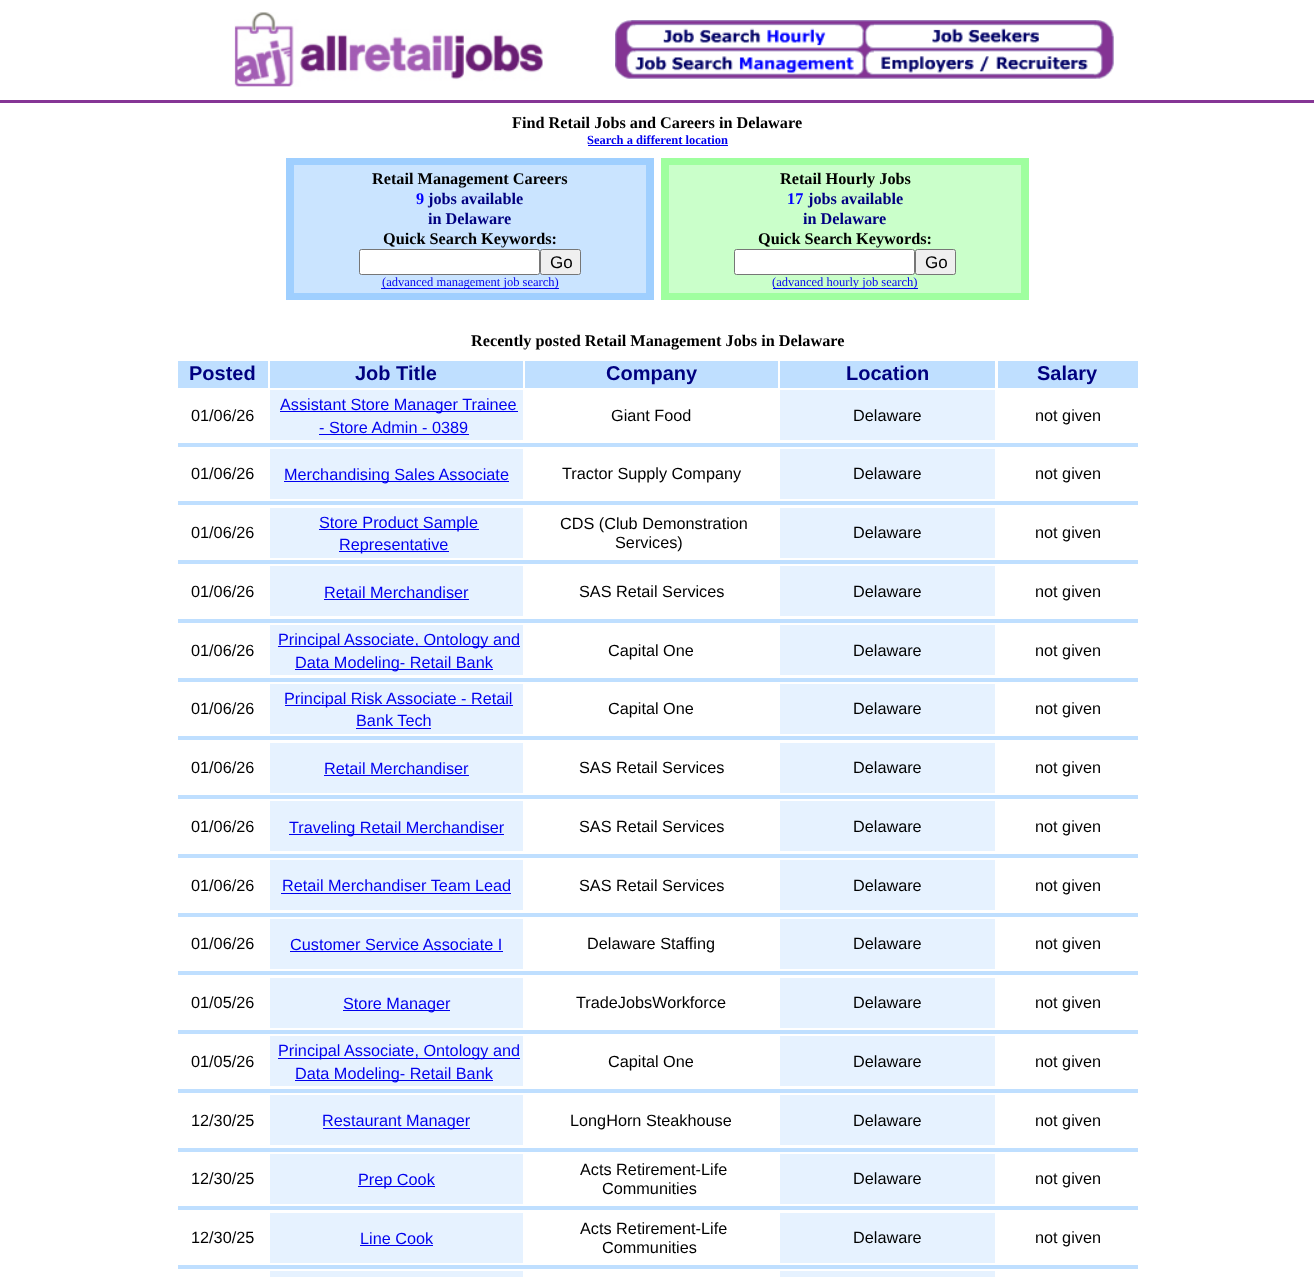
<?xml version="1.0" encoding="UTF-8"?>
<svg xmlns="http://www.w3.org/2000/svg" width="1314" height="1277">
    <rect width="100%" height="100%" fill="#FFFFFF"/>
    <image x="234" y="12" width="309" height="75" href="img_01.png"/>
    <image x="615" y="20" width="250" height="30" href="img_02.png"/>
    <image x="865" y="20" width="249" height="30" href="img_03.png"/>
    <image x="615" y="50" width="250" height="29" href="img_04.png"/>
    <image x="865" y="50" width="249" height="29" href="img_05.png"/>
    <rect x="0" y="100" width="1314" height="3" fill="#853595"/>
    <text x="512" y="128" font-family="Liberation Serif" font-size="16.25" font-weight="700" fill="#000000">Find Retail Jobs and Careers in Delaware</text>
    <text x="587" y="144" font-family="Liberation Serif" font-size="12.5" font-weight="700" fill="#0000EE">Search a different location</text>
    <rect x="588" y="145" width="140" height="1" fill="#0000EE"/>
    <rect x="286" y="158" width="368" height="142" fill="#9FCFFF"/>
    <rect x="294" y="165" width="352" height="128" fill="#CAE4FF"/>
    <text x="372" y="184" font-family="Liberation Serif" font-size="16.25" font-weight="700" fill="#000000">Retail Management Careers</text>
    <text x="416" y="204" font-family="Liberation Serif" font-size="16.25" font-weight="700" fill="#0000FF">9</text>
    <text font-family="Liberation Serif" font-size="16.25" font-weight="700" fill="#000080">
        <tspan x="428" y="204">jobs available</tspan>
        <tspan x="428" y="224">in Delaware</tspan>
    </text>
    <text x="383" y="244" font-family="Liberation Serif" font-size="16.25" font-weight="700" fill="#000000">Quick Search Keywords:</text>
    <rect x="359.5" y="249.5" width="180" height="25" rx="2" fill="#FFFFFF" stroke="#767676"/>
    <rect x="540.5" y="249.5" width="40" height="25" rx="2" fill="#EFEFEF" stroke="#767676"/>
    <text x="550" y="268" font-family="Liberation Sans" font-size="17" fill="#000000">Go</text>
    <rect x="381" y="288" width="178" height="1" fill="#0000EE"/>
    <text x="382" y="286" font-family="Liberation Serif" font-size="12.5" fill="#0000EE">(advanced management job search)</text>
    <rect x="661" y="158" width="368" height="142" fill="#9FFF9F"/>
    <rect x="669" y="165" width="352" height="128" fill="#CAFFCA"/>
    <text x="780" y="184" font-family="Liberation Serif" font-size="16.25" font-weight="700" fill="#000000">Retail Hourly Jobs</text>
    <text x="787" y="204" font-family="Liberation Serif" font-size="16.25" font-weight="700" fill="#0000FF">17</text>
    <text x="808" y="204" font-family="Liberation Serif" font-size="16.25" font-weight="700" fill="#000080">jobs available</text>
    <text x="803" y="224" font-family="Liberation Serif" font-size="16.25" font-weight="700" fill="#000080">in Delaware</text>
    <text x="758" y="244" font-family="Liberation Serif" font-size="16.25" font-weight="700" fill="#000000">Quick Search Keywords:</text>
    <rect x="734.5" y="249.5" width="180" height="25" rx="2" fill="#FFFFFF" stroke="#767676"/>
    <rect x="915.5" y="249.5" width="40" height="25" rx="2" fill="#EFEFEF" stroke="#767676"/>
    <text x="925" y="268" font-family="Liberation Sans" font-size="17" fill="#000000">Go</text>
    <rect x="773" y="288" width="145" height="1" fill="#0000EE"/>
    <text x="772" y="286" font-family="Liberation Serif" font-size="12.5" fill="#0000EE">(advanced hourly job search)</text>
    <text x="471" y="346" font-family="Liberation Serif" font-size="16.25" font-weight="700" fill="#000000">Recently posted Retail Management Jobs in Delaware</text>
    <rect x="178" y="361" width="90" height="27" fill="#BFDFFF"/>
    <text x="189" y="380" font-family="Liberation Sans" font-size="20" font-weight="700" fill="#000080">Posted</text>
    <rect x="270" y="361" width="253" height="27" fill="#BFDFFF"/>
    <text x="355" y="380" font-family="Liberation Sans" font-size="20" font-weight="700" fill="#000080">Job Title</text>
    <rect x="525" y="361" width="253" height="27" fill="#BFDFFF"/>
    <text x="606" y="380" font-family="Liberation Sans" font-size="20" font-weight="700" fill="#000080">Company</text>
    <rect x="780" y="361" width="215" height="27" fill="#BFDFFF"/>
    <text x="846" y="380" font-family="Liberation Sans" font-size="20" font-weight="700" fill="#000080">Location</text>
    <rect x="998" y="361" width="140" height="27" fill="#BFDFFF"/>
    <text x="1037" y="380" font-family="Liberation Sans" font-size="20" font-weight="700" fill="#000080">Salary</text>
    <text x="191" y="421" font-family="Liberation Sans" font-size="16.25" fill="#000000">01/06/26</text>
    <rect x="270" y="390" width="253" height="50" fill="#E6F2FF"/>
    <rect x="280" y="411" width="238" height="1" fill="#0000EE"/>
    <text x="280" y="410" font-family="Liberation Sans" font-size="16.25" fill="#0000EE">Assistant Store Manager Trainee</text>
    <text x="319" y="433" font-family="Liberation Sans" font-size="16.25" fill="#0000EE">- Store Admin - 0389</text>
    <rect x="319" y="434" width="150" height="1" fill="#0000EE"/>
    <text x="611" y="421" font-family="Liberation Sans" font-size="16.25" fill="#000000">Giant Food</text>
    <rect x="780" y="390" width="215" height="50" fill="#E6F2FF"/>
    <text x="853" y="421" font-family="Liberation Sans" font-size="16.25" fill="#000000">Delaware</text>
    <text x="1035" y="421" font-family="Liberation Sans" font-size="16.25" fill="#000000">not given</text>
    <rect x="178" y="443" width="960" height="4" fill="#BFDFFF"/>
    <text x="191" y="479" font-family="Liberation Sans" font-size="16.25" fill="#000000">01/06/26</text>
    <rect x="270" y="449" width="253" height="50" fill="#E6F2FF"/>
    <rect x="284" y="481" width="225" height="1" fill="#0000EE"/>
    <text x="284" y="480" font-family="Liberation Sans" font-size="16.25" fill="#0000EE">Merchandising Sales Associate</text>
    <text x="562" y="479" font-family="Liberation Sans" font-size="16.25" fill="#000000">Tractor Supply Company</text>
    <rect x="780" y="449" width="215" height="50" fill="#E6F2FF"/>
    <text x="853" y="479" font-family="Liberation Sans" font-size="16.25" fill="#000000">Delaware</text>
    <text x="1035" y="479" font-family="Liberation Sans" font-size="16.25" fill="#000000">not given</text>
    <rect x="178" y="501" width="960" height="4" fill="#BFDFFF"/>
    <text x="191" y="538" font-family="Liberation Sans" font-size="16.25" fill="#000000">01/06/26</text>
    <rect x="270" y="508" width="253" height="50" fill="#E6F2FF"/>
    <rect x="319" y="529" width="160" height="1" fill="#0000EE"/>
    <text x="319" y="528" font-family="Liberation Sans" font-size="16.25" fill="#0000EE">Store Product Sample</text>
    <rect x="339" y="551" width="110" height="1" fill="#0000EE"/>
    <text x="339" y="550" font-family="Liberation Sans" font-size="16.25" fill="#0000EE">Representative</text>
    <text x="560" y="529" font-family="Liberation Sans" font-size="16.25" fill="#000000">CDS (Club Demonstration</text>
    <text x="615" y="548" font-family="Liberation Sans" font-size="16.25" fill="#000000">Services)</text>
    <rect x="780" y="508" width="215" height="50" fill="#E6F2FF"/>
    <text x="853" y="538" font-family="Liberation Sans" font-size="16.25" fill="#000000">Delaware</text>
    <text x="1035" y="538" font-family="Liberation Sans" font-size="16.25" fill="#000000">not given</text>
    <rect x="178" y="560" width="960" height="4" fill="#BFDFFF"/>
    <text x="191" y="597" font-family="Liberation Sans" font-size="16.25" fill="#000000">01/06/26</text>
    <rect x="270" y="566" width="253" height="50" fill="#E6F2FF"/>
    <text x="324" y="598" font-family="Liberation Sans" font-size="16.25" fill="#0000EE">Retail Merchandiser</text>
    <rect x="324" y="599" width="145" height="1" fill="#0000EE"/>
    <text x="579" y="597" font-family="Liberation Sans" font-size="16.25" fill="#000000">SAS Retail Services</text>
    <rect x="780" y="566" width="215" height="50" fill="#E6F2FF"/>
    <text x="853" y="597" font-family="Liberation Sans" font-size="16.25" fill="#000000">Delaware</text>
    <text x="1035" y="597" font-family="Liberation Sans" font-size="16.25" fill="#000000">not given</text>
    <rect x="178" y="619" width="960" height="4" fill="#BFDFFF"/>
    <text x="191" y="656" font-family="Liberation Sans" font-size="16.25" fill="#000000">01/06/26</text>
    <rect x="270" y="625" width="253" height="50" fill="#E6F2FF"/>
    <rect x="278" y="646" width="242" height="1" fill="#0000EE"/>
    <text x="278" y="645" font-family="Liberation Sans" font-size="16.25" fill="#0000EE">Principal Associate, Ontology and</text>
    <rect x="295" y="669" width="198" height="1" fill="#0000EE"/>
    <text x="295" y="668" font-family="Liberation Sans" font-size="16.25" fill="#0000EE">Data Modeling- Retail Bank</text>
    <text x="608" y="656" font-family="Liberation Sans" font-size="16.25" fill="#000000">Capital One</text>
    <rect x="780" y="625" width="215" height="50" fill="#E6F2FF"/>
    <text x="853" y="656" font-family="Liberation Sans" font-size="16.25" fill="#000000">Delaware</text>
    <text x="1035" y="656" font-family="Liberation Sans" font-size="16.25" fill="#000000">not given</text>
    <rect x="178" y="678" width="960" height="4" fill="#BFDFFF"/>
    <text x="191" y="714" font-family="Liberation Sans" font-size="16.25" fill="#000000">01/06/26</text>
    <rect x="270" y="684" width="253" height="50" fill="#E6F2FF"/>
    <rect x="285" y="705" width="228" height="1" fill="#0000EE"/>
    <text x="284" y="704" font-family="Liberation Sans" font-size="16.25" fill="#0000EE">Principal Risk Associate - Retail</text>
    <text x="356" y="726" font-family="Liberation Sans" font-size="16.25" fill="#0000EE">Bank Tech</text>
    <rect x="356" y="728" width="75" height="1" fill="#0000EE"/>
    <text x="608" y="714" font-family="Liberation Sans" font-size="16.25" fill="#000000">Capital One</text>
    <rect x="780" y="684" width="215" height="50" fill="#E6F2FF"/>
    <text x="853" y="714" font-family="Liberation Sans" font-size="16.25" fill="#000000">Delaware</text>
    <text x="1035" y="714" font-family="Liberation Sans" font-size="16.25" fill="#000000">not given</text>
    <rect x="178" y="736" width="960" height="4" fill="#BFDFFF"/>
    <text x="191" y="773" font-family="Liberation Sans" font-size="16.25" fill="#000000">01/06/26</text>
    <rect x="270" y="743" width="253" height="50" fill="#E6F2FF"/>
    <text x="324" y="774" font-family="Liberation Sans" font-size="16.25" fill="#0000EE">Retail Merchandiser</text>
    <rect x="324" y="775" width="145" height="1" fill="#0000EE"/>
    <text x="579" y="773" font-family="Liberation Sans" font-size="16.25" fill="#000000">SAS Retail Services</text>
    <rect x="780" y="743" width="215" height="50" fill="#E6F2FF"/>
    <text x="853" y="773" font-family="Liberation Sans" font-size="16.25" fill="#000000">Delaware</text>
    <text x="1035" y="773" font-family="Liberation Sans" font-size="16.25" fill="#000000">not given</text>
    <rect x="178" y="795" width="960" height="4" fill="#BFDFFF"/>
    <text x="191" y="832" font-family="Liberation Sans" font-size="16.25" fill="#000000">01/06/26</text>
    <rect x="270" y="801" width="253" height="50" fill="#E6F2FF"/>
    <rect x="289" y="834" width="215" height="1" fill="#0000EE"/>
    <text x="289" y="833" font-family="Liberation Sans" font-size="16.25" fill="#0000EE">Traveling Retail Merchandiser</text>
    <text x="579" y="832" font-family="Liberation Sans" font-size="16.25" fill="#000000">SAS Retail Services</text>
    <rect x="780" y="801" width="215" height="50" fill="#E6F2FF"/>
    <text x="853" y="832" font-family="Liberation Sans" font-size="16.25" fill="#000000">Delaware</text>
    <text x="1035" y="832" font-family="Liberation Sans" font-size="16.25" fill="#000000">not given</text>
    <rect x="178" y="854" width="960" height="4" fill="#BFDFFF"/>
    <text x="191" y="891" font-family="Liberation Sans" font-size="16.25" fill="#000000">01/06/26</text>
    <rect x="270" y="860" width="253" height="50" fill="#E6F2FF"/>
    <text x="282" y="891" font-family="Liberation Sans" font-size="16.25" fill="#0000EE">Retail Merchandiser Team Lead</text>
    <rect x="281" y="893" width="230" height="1" fill="#0000EE"/>
    <text x="579" y="891" font-family="Liberation Sans" font-size="16.25" fill="#000000">SAS Retail Services</text>
    <rect x="780" y="860" width="215" height="50" fill="#E6F2FF"/>
    <text x="853" y="891" font-family="Liberation Sans" font-size="16.25" fill="#000000">Delaware</text>
    <text x="1035" y="891" font-family="Liberation Sans" font-size="16.25" fill="#000000">not given</text>
    <rect x="178" y="913" width="960" height="4" fill="#BFDFFF"/>
    <text x="191" y="949" font-family="Liberation Sans" font-size="16.25" fill="#000000">01/06/26</text>
    <rect x="270" y="919" width="253" height="50" fill="#E6F2FF"/>
    <text x="290" y="950" font-family="Liberation Sans" font-size="16.25" fill="#0000EE">Customer Service Associate I</text>
    <rect x="290" y="951" width="213" height="1" fill="#0000EE"/>
    <text x="587" y="949" font-family="Liberation Sans" font-size="16.25" fill="#000000">Delaware Staffing</text>
    <rect x="780" y="919" width="215" height="50" fill="#E6F2FF"/>
    <text x="853" y="949" font-family="Liberation Sans" font-size="16.25" fill="#000000">Delaware</text>
    <text x="1035" y="949" font-family="Liberation Sans" font-size="16.25" fill="#000000">not given</text>
    <rect x="178" y="971" width="960" height="4" fill="#BFDFFF"/>
    <text x="191" y="1008" font-family="Liberation Sans" font-size="16.25" fill="#000000">01/05/26</text>
    <rect x="270" y="978" width="253" height="50" fill="#E6F2FF"/>
    <rect x="343" y="1010" width="107" height="1" fill="#0000EE"/>
    <text x="343" y="1009" font-family="Liberation Sans" font-size="16.25" fill="#0000EE">Store Manager</text>
    <text x="576" y="1008" font-family="Liberation Sans" font-size="16.25" fill="#000000">TradeJobsWorkforce</text>
    <rect x="780" y="978" width="215" height="50" fill="#E6F2FF"/>
    <text x="853" y="1008" font-family="Liberation Sans" font-size="16.25" fill="#000000">Delaware</text>
    <text x="1035" y="1008" font-family="Liberation Sans" font-size="16.25" fill="#000000">not given</text>
    <rect x="178" y="1030" width="960" height="4" fill="#BFDFFF"/>
    <text x="191" y="1067" font-family="Liberation Sans" font-size="16.25" fill="#000000">01/05/26</text>
    <rect x="270" y="1036" width="253" height="50" fill="#E6F2FF"/>
    <rect x="278" y="1058" width="242" height="1" fill="#0000EE"/>
    <text x="278" y="1056" font-family="Liberation Sans" font-size="16.25" fill="#0000EE">Principal Associate, Ontology and</text>
    <rect x="295" y="1080" width="198" height="1" fill="#0000EE"/>
    <text x="295" y="1079" font-family="Liberation Sans" font-size="16.25" fill="#0000EE">Data Modeling- Retail Bank</text>
    <text x="608" y="1067" font-family="Liberation Sans" font-size="16.25" fill="#000000">Capital One</text>
    <rect x="780" y="1036" width="215" height="50" fill="#E6F2FF"/>
    <text x="853" y="1067" font-family="Liberation Sans" font-size="16.25" fill="#000000">Delaware</text>
    <text x="1035" y="1067" font-family="Liberation Sans" font-size="16.25" fill="#000000">not given</text>
    <rect x="178" y="1089" width="960" height="4" fill="#BFDFFF"/>
    <text x="191" y="1126" font-family="Liberation Sans" font-size="16.25" fill="#000000">12/30/25</text>
    <rect x="270" y="1095" width="253" height="50" fill="#E6F2FF"/>
    <rect x="323" y="1128" width="147" height="1" fill="#0000EE"/>
    <text x="322" y="1126" font-family="Liberation Sans" font-size="16.25" fill="#0000EE">Restaurant Manager</text>
    <text x="570" y="1126" font-family="Liberation Sans" font-size="16.25" fill="#000000">LongHorn Steakhouse</text>
    <rect x="780" y="1095" width="215" height="50" fill="#E6F2FF"/>
    <text x="853" y="1126" font-family="Liberation Sans" font-size="16.25" fill="#000000">Delaware</text>
    <text x="1035" y="1126" font-family="Liberation Sans" font-size="16.25" fill="#000000">not given</text>
    <rect x="178" y="1148" width="960" height="4" fill="#BFDFFF"/>
    <text x="191" y="1184" font-family="Liberation Sans" font-size="16.25" fill="#000000">12/30/25</text>
    <rect x="270" y="1154" width="253" height="50" fill="#E6F2FF"/>
    <rect x="358" y="1186" width="77" height="1" fill="#0000EE"/>
    <text x="358" y="1185" font-family="Liberation Sans" font-size="16.25" fill="#0000EE">Prep Cook</text>
    <text x="580" y="1175" font-family="Liberation Sans" font-size="16.25" fill="#000000">Acts Retirement-Life</text>
    <text x="602" y="1194" font-family="Liberation Sans" font-size="16.25" fill="#000000">Communities</text>
    <rect x="780" y="1154" width="215" height="50" fill="#E6F2FF"/>
    <text x="853" y="1184" font-family="Liberation Sans" font-size="16.25" fill="#000000">Delaware</text>
    <text x="1035" y="1184" font-family="Liberation Sans" font-size="16.25" fill="#000000">not given</text>
    <rect x="178" y="1206" width="960" height="4" fill="#BFDFFF"/>
    <text x="191" y="1243" font-family="Liberation Sans" font-size="16.25" fill="#000000">12/30/25</text>
    <rect x="270" y="1213" width="253" height="50" fill="#E6F2FF"/>
    <text x="360" y="1244" font-family="Liberation Sans" font-size="16.25" fill="#0000EE">Line Cook</text>
    <rect x="360" y="1245" width="73" height="1" fill="#0000EE"/>
    <text x="580" y="1234" font-family="Liberation Sans" font-size="16.25" fill="#000000">Acts Retirement-Life</text>
    <text x="602" y="1253" font-family="Liberation Sans" font-size="16.25" fill="#000000">Communities</text>
    <rect x="780" y="1213" width="215" height="50" fill="#E6F2FF"/>
    <text x="853" y="1243" font-family="Liberation Sans" font-size="16.25" fill="#000000">Delaware</text>
    <text x="1035" y="1243" font-family="Liberation Sans" font-size="16.25" fill="#000000">not given</text>
    <rect x="178" y="1265" width="960" height="4" fill="#BFDFFF"/>
    <rect x="270" y="1271" width="253" height="6" fill="#E6F2FF"/>
    <rect x="780" y="1271" width="215" height="6" fill="#E6F2FF"/>
</svg>
